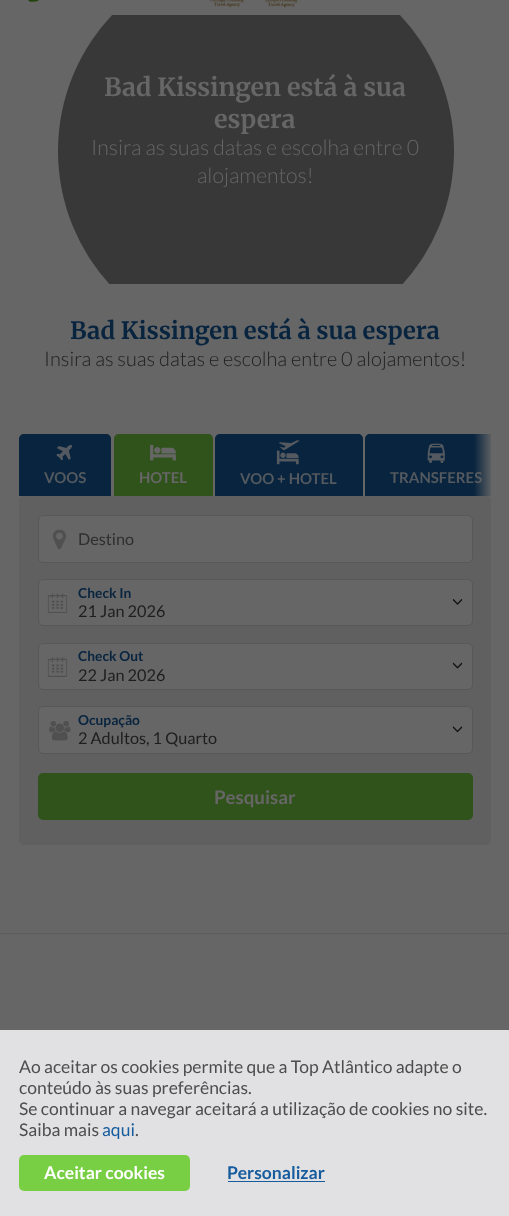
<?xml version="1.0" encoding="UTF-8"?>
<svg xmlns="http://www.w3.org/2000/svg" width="509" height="1216">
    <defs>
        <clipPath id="clip1"><rect x="0" y="15" width="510" height="269"/></clipPath>
        <linearGradient id="g1" gradientUnits="userSpaceOnUse" x1="474" y1="465" x2="493" y2="465"><stop offset="0" stop-color="#666666" stop-opacity="0"/><stop offset="1" stop-color="#666666"/></linearGradient>
    </defs>
    <rect width="100%" height="100%" fill="#666666"/>
    <image x="28" y="0" width="11" height="2" href="img_01.png"/>
    <g clip-path="url(#clip1)">
        <circle cx="256" cy="151" r="198" fill="#383838"/>
    </g>
    <image x="210" y="0" width="34" height="8" href="img_02.png"/>
    <image x="265" y="0" width="33" height="8" href="img_03.png"/>
    <text x="104" y="96" font-family="Merriweather" font-size="25" font-weight="300" fill="#666666">Bad Kissingen está à sua</text>
    <text x="214" y="128" font-family="Merriweather" font-size="25" font-weight="300" fill="#666666">espera</text>
    <text x="91" y="155" font-family="Lato" font-size="21.25" font-weight="300" fill="#666666">Insira as suas datas e escolha entre 0</text>
    <text x="197" y="183" font-family="Lato" font-size="21.25" font-weight="300" fill="#666666">alojamentos!</text>
    <text x="70" y="339" font-family="Merriweather" font-size="23.75" font-weight="300" fill="#08243F">Bad Kissingen está à sua espera</text>
    <text x="44" y="366" font-family="Lato" font-size="20" font-weight="300" fill="#1E1E1E">Insira as suas datas e escolha entre 0 alojamentos!</text>
    <path d="M 24 434 H 106 C 109 434 111 436 111 439 V 496 H 19 V 439 C 19 436 21 434 24 434 Z" fill="#08243F"/>
    <image x="56" y="444" width="16" height="17" href="img_04.png"/>
    <text x="44" y="483" font-family="Lato" font-size="15" font-weight="700" fill="#53595E">VOOS</text>
    <path d="M 119 434 H 208 C 211 434 213 436 213 439 V 496 H 114 V 439 C 114 436 116 434 119 434 Z" fill="#30531B"/>
    <image x="150" y="444" width="26" height="17" href="img_05.png"/>
    <text x="139" y="483" font-family="Lato" font-size="15" font-weight="700" fill="#666666">HOTEL</text>
    <path d="M 370 434 H 491 V 496 H 365 V 439 C 365 436 367 434 370 434 Z" fill="#08243F"/>
    <text x="390" y="483" font-family="Lato" font-size="15" font-weight="700" fill="#53595E">TRANSFERES</text>
    <rect x="474" y="434" width="17" height="62" fill="url(#g1)"/>
    <path d="M 220 434 H 358 C 361 434 363 436 363 439 V 496 H 215 V 439 C 215 436 217 434 220 434 Z" fill="#08243F"/>
    <image x="276" y="440" width="24" height="25" href="img_06.png"/>
    <text x="240" y="484" font-family="Lato" font-size="15" font-weight="700" fill="#53595E">VOO + HOTEL</text>
    <image x="427" y="443" width="18" height="20" href="img_07.png"/>
    <rect x="19" y="496" width="472" height="349" rx="5" fill="#606060"/>
    <rect x="38.5" y="515.5" width="434" height="47" rx="4.5" fill="#666666" stroke="#585858"/>
    <image x="53" y="529" width="13" height="21" href="img_08.png"/>
    <text x="78" y="545" font-family="Lato" font-size="16.25" fill="#2F2F2F">Destino</text>
    <rect x="38.5" y="579.5" width="434" height="46" rx="4.5" fill="#666666" stroke="#585858"/>
    <image x="47" y="593" width="21" height="20" href="img_09.png"/>
    <text x="78" y="598" font-family="Lato" font-size="13.75" font-weight="700" fill="#08243F">Check In</text>
    <image x="452" y="599" width="11" height="6" href="img_10.png"/>
    <text x="78" y="617" font-family="Lato" font-size="16.25" fill="#1E1E1E">21 Jan 2026</text>
    <rect x="38.5" y="643.5" width="434" height="46" rx="4.5" fill="#666666" stroke="#585858"/>
    <image x="47" y="657" width="21" height="20" href="img_11.png"/>
    <text x="78" y="661" font-family="Lato" font-size="13.75" font-weight="700" fill="#08243F">Check Out</text>
    <image x="452" y="662" width="11" height="7" href="img_12.png"/>
    <text x="78" y="681" font-family="Lato" font-size="16.25" fill="#1E1E1E">22 Jan 2026</text>
    <rect x="38.5" y="706.5" width="434" height="47" rx="4.5" fill="#666666" stroke="#585858"/>
    <image x="49" y="721" width="22" height="20" href="img_13.png"/>
    <text x="78" y="725" font-family="Lato" font-size="13.75" font-weight="700" fill="#08243F">Ocupação</text>
    <image x="452" y="726" width="11" height="7" href="img_14.png"/>
    <text x="78" y="744" font-family="Lato" font-size="16.25" fill="#1E1E1E">2 Adultos, 1 Quarto</text>
    <rect x="38" y="773" width="435" height="47" rx="5" fill="#30531B"/>
    <text x="214" y="804" font-family="Lato" font-size="18.75" font-weight="700" fill="#666666">Pesquisar</text>
    <rect x="0" y="933" width="509" height="1" fill="#5C5C5C"/>
    <rect x="0" y="1030" width="509" height="186" fill="#E1E1E3"/>
    <text font-family="Lato" font-size="17.5" fill="#4D4D4D">
        <tspan x="19" y="1073">Ao aceitar os cookies permite que a Top Atlântico adapte o</tspan>
        <tspan x="19" y="1094">conteúdo às suas preferências.</tspan>
        <tspan x="19" y="1115">Se continuar a navegar aceitará a utilização de cookies no site.</tspan>
        <tspan x="19" y="1136">Saiba mais</tspan>
    </text>
    <text x="102" y="1136" font-family="Lato" font-size="17.5" fill="#155B9D">aqui</text>
    <text x="135" y="1136" font-family="Lato" font-size="17.5" fill="#4D4D4D">.</text>
    <rect x="19" y="1155" width="171" height="36" rx="5" fill="#79CF43"/>
    <text x="44" y="1179" font-family="Lato" font-size="17.5" font-weight="700" fill="#FFFFFF">Aceitar cookies</text>
    <text x="227" y="1179" font-family="Lato" font-size="17.5" font-weight="700" fill="#155B9D">Personalizar</text>
    <rect x="228" y="1181" width="97" height="1" fill="#155B9D"/>
</svg>
